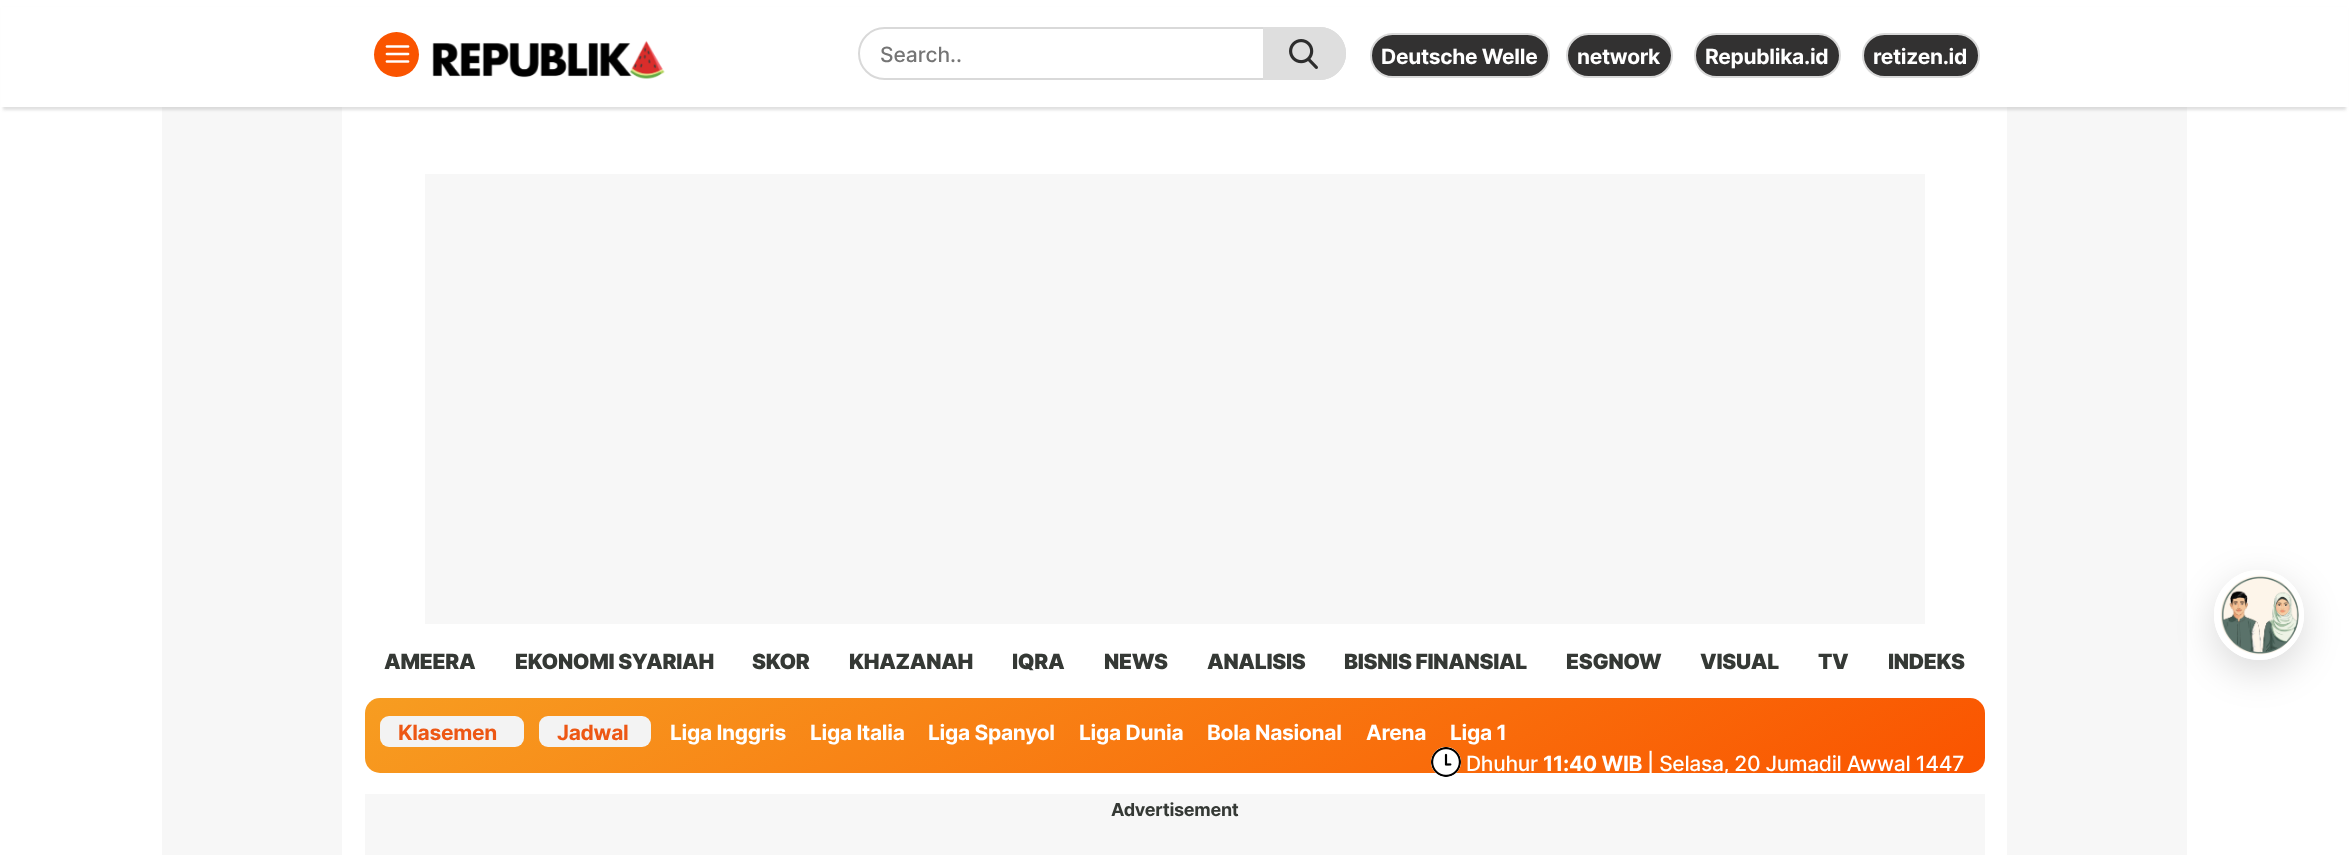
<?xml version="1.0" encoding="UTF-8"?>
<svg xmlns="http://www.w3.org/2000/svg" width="2349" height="855">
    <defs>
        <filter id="blur1" x="-50%" y="-200%" width="200%" height="500%"><feGaussianBlur stdDeviation="1.5"/></filter>
        <linearGradient id="g1" gradientUnits="userSpaceOnUse" x1="956" y1="356" x2="1393" y2="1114"><stop offset="0" stop-color="#F79D21"/><stop offset="1" stop-color="#FA5400"/></linearGradient>
        <clipPath id="clip1"><path d="M 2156 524 H 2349 V 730 H 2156 Z M 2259 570 C 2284 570 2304 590 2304 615 C 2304 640 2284 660 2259 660 C 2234 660 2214 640 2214 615 C 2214 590 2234 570 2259 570 Z" clip-rule="evenodd"/></clipPath>
        <filter id="blur2" x="-50%" y="-200%" width="200%" height="500%"><feGaussianBlur stdDeviation="19"/></filter>
    </defs>
    <rect width="100%" height="100%" fill="#FFFFFF"/>
    <rect x="162" y="107" width="180" height="748" fill="#F7F7F7"/>
    <rect x="2007" y="107" width="180" height="748" fill="#F7F7F7"/>
    <rect x="3" y="9" width="2343" height="101" fill="#999999" fill-opacity="0.3" filter="url(#blur1)"/>
    <rect x="1" y="7" width="2347" height="100" fill="#FFFFFF"/>
    <circle cx="396.5" cy="54.5" r="22.5" fill="#FA5400"/>
    <image x="385" y="45" width="25" height="18" href="img_01.png"/>
    <image x="432" y="40" width="233" height="39" href="img_02.png"/>
    <rect x="859" y="28" width="486" height="51" rx="25.5" fill="none" stroke="#D9D9D9" stroke-width="2"/>
    <text x="880" y="62" font-family="Inter" font-size="21" font-weight="500" fill="#757575">Search..</text>
    <path d="M 1263 27 H 1319.5 C 1334 27 1346 39 1346 53.5 C 1346 68 1334 80 1319.5 80 H 1263 Z" fill="#DEDEDE"/>
    <image x="1289" y="39" width="29" height="30" href="img_03.png"/>
    <rect x="1371" y="34" width="178" height="43" rx="21.5" fill="#323131" stroke="#D9D9D9" stroke-width="2"/>
    <text x="1381" y="64" font-family="Inter" font-size="21" font-weight="700" letter-spacing="-0.3" fill="#FFFFFF">Deutsche Welle</text>
    <rect x="1567" y="34" width="105" height="43" rx="21.5" fill="#323131" stroke="#D9D9D9" stroke-width="2"/>
    <text x="1577" y="64" font-family="Inter" font-size="21" font-weight="700" letter-spacing="-0.3" fill="#FFFFFF">network</text>
    <rect x="1695" y="34" width="145" height="43" rx="21.5" fill="#323131" stroke="#D9D9D9" stroke-width="2"/>
    <text x="1705" y="64" font-family="Inter" font-size="21" font-weight="700" letter-spacing="-0.3" fill="#FFFFFF">Republika.id</text>
    <rect x="1863" y="34" width="116" height="43" rx="21.5" fill="#323131" stroke="#D9D9D9" stroke-width="2"/>
    <text x="1873" y="64" font-family="Inter" font-size="21" font-weight="700" letter-spacing="-0.3" fill="#FFFFFF">retizen.id</text>
    <rect x="425" y="174" width="1500" height="450" fill="#F7F7F7"/>
    <text x="384" y="669" font-family="Inter" font-size="21" font-weight="900" letter-spacing="-0.3" fill="#353935">AMEERA</text>
    <text x="515" y="669" font-family="Inter" font-size="21" font-weight="900" letter-spacing="-0.3" fill="#353935">EKONOMI SYARIAH</text>
    <text x="752" y="669" font-family="Inter" font-size="21" font-weight="900" letter-spacing="-0.3" fill="#353935">SKOR</text>
    <text x="849" y="669" font-family="Inter" font-size="21" font-weight="900" letter-spacing="-0.3" fill="#353935">KHAZANAH</text>
    <text x="1012" y="669" font-family="Inter" font-size="21" font-weight="900" letter-spacing="-0.3" fill="#353935">IQRA</text>
    <text x="1104" y="669" font-family="Inter" font-size="21" font-weight="900" letter-spacing="-0.3" fill="#353935">NEWS</text>
    <text x="1207" y="669" font-family="Inter" font-size="21" font-weight="900" letter-spacing="-0.3" fill="#353935">ANALISIS</text>
    <text x="1344" y="669" font-family="Inter" font-size="21" font-weight="900" letter-spacing="-0.3" fill="#353935">BISNIS FINANSIAL</text>
    <text x="1566" y="669" font-family="Inter" font-size="21" font-weight="900" letter-spacing="-0.3" fill="#353935">ESGNOW</text>
    <text x="1700" y="669" font-family="Inter" font-size="21" font-weight="900" letter-spacing="-0.3" fill="#353935">VISUAL</text>
    <text x="1818" y="669" font-family="Inter" font-size="21" font-weight="900" letter-spacing="-0.3" fill="#353935">TV</text>
    <text x="1888" y="669" font-family="Inter" font-size="21" font-weight="900" letter-spacing="-0.3" fill="#353935">INDEKS</text>
    <rect x="365" y="698" width="1620" height="75" rx="15" fill="url(#g1)"/>
    <rect x="380" y="716" width="144" height="31" rx="9" fill="#F3F3F3"/>
    <text x="398" y="740" font-family="Inter" font-size="21" font-weight="700" letter-spacing="-0.3" fill="#ED5714">Klasemen</text>
    <rect x="539" y="716" width="112" height="31" rx="9" fill="#F3F3F3"/>
    <text x="557" y="740" font-family="Inter" font-size="21" font-weight="700" letter-spacing="-0.3" fill="#ED5714">Jadwal</text>
    <text x="670" y="740" font-family="Inter" font-size="21" font-weight="700" letter-spacing="-0.3" fill="#FFFFFF">Liga Inggris</text>
    <text x="810" y="740" font-family="Inter" font-size="21" font-weight="700" letter-spacing="-0.3" fill="#FFFFFF">Liga Italia</text>
    <text x="928" y="740" font-family="Inter" font-size="21" font-weight="700" letter-spacing="-0.3" fill="#FFFFFF">Liga Spanyol</text>
    <text x="1079" y="740" font-family="Inter" font-size="21" font-weight="700" letter-spacing="-0.3" fill="#FFFFFF">Liga Dunia</text>
    <text x="1207" y="740" font-family="Inter" font-size="21" font-weight="700" letter-spacing="-0.3" fill="#FFFFFF">Bola Nasional</text>
    <text x="1366" y="740" font-family="Inter" font-size="21" font-weight="700" letter-spacing="-0.3" fill="#FFFFFF">Arena</text>
    <text x="1450" y="740" font-family="Inter" font-size="21" font-weight="700" letter-spacing="-0.3" fill="#FFFFFF">Liga 1</text>
    <circle cx="1446" cy="762" r="15" fill="#FFFFFF"/>
    <image x="1431" y="747" width="30" height="30" href="img_04.png"/>
    <text x="1466" y="771" font-family="Inter" font-size="21" font-weight="500" letter-spacing="-0.3" fill="#FFFFFF">Dhuhur</text>
    <text x="1543" y="771" font-family="Inter" font-size="21" font-weight="700" letter-spacing="-0.3" fill="#FFFFFF">11:40 WIB</text>
    <text x="1647" y="771" font-family="Inter" font-size="21" font-weight="500" letter-spacing="-0.3" fill="#FFFFFF">| Selasa, 20 Jumadil Awwal 1447</text>
    <rect x="365" y="794" width="1620" height="61" fill="#F7F7F7"/>
    <text x="1111" y="816" font-family="Inter" font-size="18" font-weight="700" letter-spacing="-0.3" fill="#353935">Advertisement</text>
    <g clip-path="url(#clip1)">
        <rect x="2214" y="582" width="90" height="90" rx="45" fill="#000000" fill-opacity="0.15" filter="url(#blur2)"/>
    </g>
    <image x="2220" y="575" width="79" height="80" href="img_05.png"/>
    <circle cx="2259" cy="615" r="42.5" fill="none" stroke="#FFFFFF" stroke-width="5"/>
</svg>
